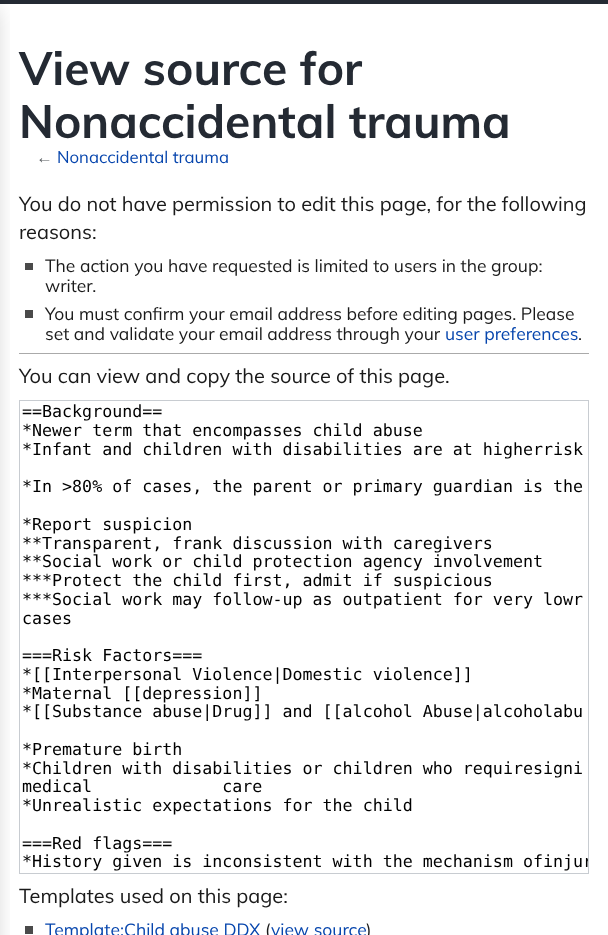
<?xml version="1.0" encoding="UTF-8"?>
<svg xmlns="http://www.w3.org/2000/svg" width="608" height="935">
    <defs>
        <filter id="blur1" x="-50%" y="-200%" width="200%" height="500%"><feGaussianBlur stdDeviation="10.5"/></filter>
        <clipPath id="clip1"><rect x="20" y="401" width="568" height="472"/></clipPath>
    </defs>
    <rect width="100%" height="100%" fill="#FFFFFF"/>
    <rect x="0" y="0" width="608" height="4" fill="#242A33"/>
    <rect x="25" y="263" width="8" height="7" fill="#4A4A4A"/>
    <rect x="25" y="310" width="8" height="8" fill="#4A4A4A"/>
    <rect x="19" y="353" width="570" height="1" fill="#AAAAAA"/>
    <rect x="19.5" y="400.5" width="569" height="473" fill="none" stroke="#C8CCD1"/>
    <rect x="25" y="926" width="8" height="8" fill="#4A4A4A"/>
    <rect x="-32" y="8" width="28" height="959" fill="#000000" fill-opacity="0.2" filter="url(#blur1)"/>
    <text font-family="Muli" font-size="46.25" font-weight="700" fill="#242A33">
        <tspan x="19" y="85">View source for</tspan>
        <tspan x="19" y="138">Nonaccidental trauma</tspan>
    </text>
    <text x="36" y="163" font-family="Liberation Sans" font-size="16.75" fill="#54595D">←</text>
    <text x="57" y="163" font-family="Muli" font-size="16.75" fill="#0645AD">Nonaccidental trauma</text>
    <text font-family="Muli" font-size="20" fill="#1A1A1A">
        <tspan x="19" y="211">You do not have permission to edit this page, for the following</tspan>
        <tspan x="19" y="239">reasons:</tspan>
    </text>
    <text font-family="Muli" font-size="17.5" fill="#1A1A1A">
        <tspan x="45" y="272">The action you have requested is limited to users in the group:</tspan>
        <tspan x="45" y="292">writer.</tspan>
        <tspan x="45" y="320">You must confirm your email address before editing pages. Please</tspan>
        <tspan x="45" y="340">set and validate your email address through your</tspan>
    </text>
    <text x="445" y="340" font-family="Muli" font-size="17.5" fill="#0645AD">user preferences</text>
    <text x="578" y="340" font-family="Muli" font-size="17.5" fill="#1A1A1A">.</text>
    <text x="19" y="383" font-family="Muli" font-size="20" fill="#1A1A1A">You can view and copy the source of this page.</text>
    <text font-family="DejaVu Sans Mono" font-size="16.65" fill="#000000">
        <tspan x="22" y="417">==Background==</tspan>
        <tspan x="22" y="436">*Newer term that encompasses child abuse</tspan>
        <tspan x="22" y="455">*Infant and children with disabilities are at higherrisk</tspan>
    </text>
    <text x="22" y="492" font-family="DejaVu Sans Mono" font-size="16.65" fill="#000000">*In &gt;80% of cases, the parent or primary guardian is the</text>
    <text font-family="DejaVu Sans Mono" font-size="16.65" fill="#000000">
        <tspan x="22" y="530">*Report suspicion</tspan>
        <tspan x="22" y="549">**Transparent, frank discussion with caregivers</tspan>
        <tspan x="22" y="567">**Social work or child protection agency involvement</tspan>
        <tspan x="22" y="586">***Protect the child first, admit if suspicious</tspan>
        <tspan x="22" y="605">***Social work may follow-up as outpatient for very lowr</tspan>
        <tspan x="22" y="624">cases</tspan>
    </text>
    <text font-family="DejaVu Sans Mono" font-size="16.65" fill="#000000">
        <tspan x="22" y="661">===Risk Factors===</tspan>
        <tspan x="22" y="680">*[[Interpersonal Violence|Domestic violence]]</tspan>
        <tspan x="22" y="699">*Maternal [[depression]]</tspan>
        <tspan x="22" y="717">*[[Substance abuse|Drug]] and [[alcohol Abuse|alcoholabu</tspan>
    </text>
    <text font-family="DejaVu Sans Mono" font-size="16.65" fill="#000000">
        <tspan x="22" y="755">*Premature birth</tspan>
        <tspan x="22" y="774">*Children with disabilities or children who requiresigni</tspan>
        <tspan x="22" y="792" word-spacing="120">medical care</tspan>
        <tspan x="22" y="811">*Unrealistic expectations for the child</tspan>
    </text>
    <text font-family="DejaVu Sans Mono" font-size="16.65" fill="#000000">
        <tspan x="22" y="849">===Red flags===</tspan>
        <tspan x="22" y="867">*History given is inconsistent with the mechanism of</tspan>
    </text>
    <g clip-path="url(#clip1)">
        <text x="543" y="867" font-family="DejaVu Sans Mono" font-size="16.65" fill="#000000">injur</text>
    </g>
    <text x="19" y="903" font-family="Muli" font-size="20" fill="#1A1A1A">Templates used on this page:</text>
    <text x="45" y="936" font-family="Muli" font-size="17.5" fill="#0645AD">Template:Child abuse DDX</text>
    <text x="265" y="936" font-family="Muli" font-size="17.5" fill="#1A1A1A">(</text>
    <text x="271" y="936" font-family="Muli" font-size="17.5" fill="#0645AD">view source</text>
    <text x="366" y="936" font-family="Muli" font-size="17.5" fill="#1A1A1A">)</text>
</svg>
